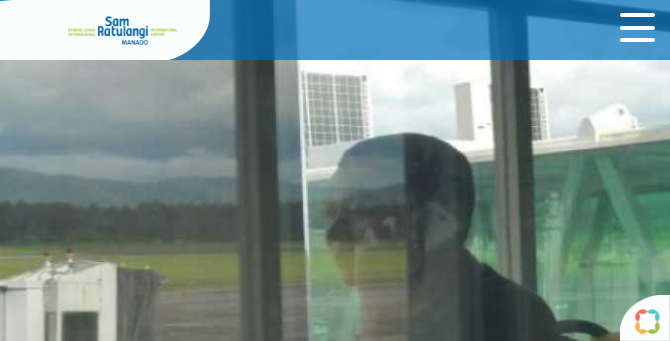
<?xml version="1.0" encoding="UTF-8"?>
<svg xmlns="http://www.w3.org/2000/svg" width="670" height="341">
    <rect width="100%" height="100%" fill="#FFFFFF"/>
    <image x="0" y="0" width="670" height="341" href="img_01.png"/>
    <rect x="169" y="0" width="501" height="60" fill="#006EBB" fill-opacity="0.7"/>
    <image x="0" y="0" width="210" height="60" href="img_02.png"/>
    <image x="68" y="16" width="110" height="30" href="img_03.png"/>
    <rect x="620" y="13" width="35" height="4" rx="2" fill="#FFFFFF"/>
    <rect x="620" y="26" width="35" height="4" rx="2" fill="#FFFFFF"/>
    <rect x="620" y="38" width="35" height="4" rx="2" fill="#FFFFFF"/>
    <image x="620" y="295" width="50" height="46" href="img_04.png"/>
</svg>
